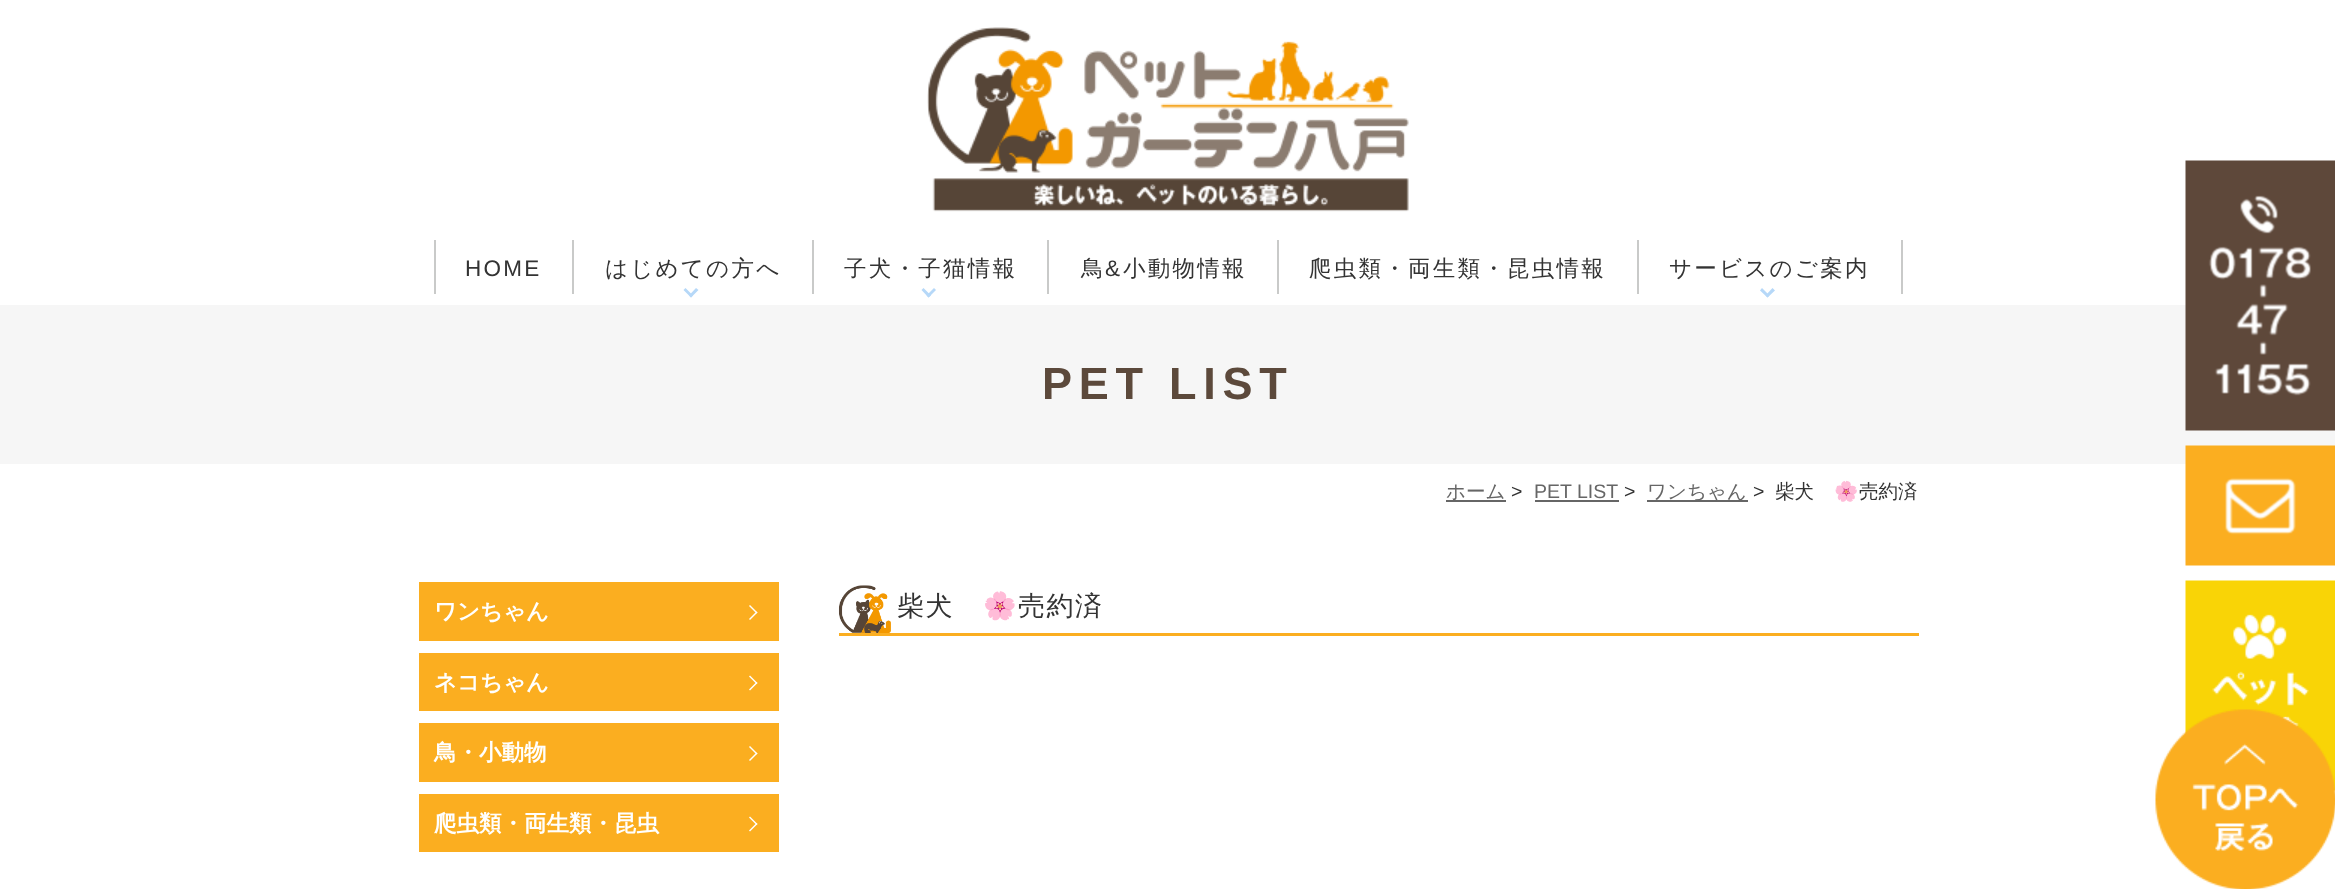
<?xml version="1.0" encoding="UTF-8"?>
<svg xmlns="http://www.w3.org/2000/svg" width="2335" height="889">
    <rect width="100%" height="100%" fill="#FFFFFF"/>
    <image x="927" y="27" width="482" height="185" href="img_01.png"/>
    <rect x="434" y="240" width="2" height="54" fill="#C9CAC9"/>
    <text x="465" y="276" font-family="Liberation Sans" font-size="22.5" letter-spacing="2.25" fill="#333333">HOME</text>
    <rect x="572" y="240" width="2" height="54" fill="#C9CAC9"/>
    <text x="605" y="276" font-family="WenQuanYi Zen Hei" font-size="22.5" font-weight="500" letter-spacing="2.25" fill="#333333">はじめての方へ</text>
    <path d="M 698.5 290 L 691 297.5 L 689 295.5 L 696 288 Z" fill="#B6D8F8"/>
    <path d="M 693 295.5 L 691 297.5 L 683.5 290 L 685.5 288 Z" fill="#B6D8F8"/>
    <rect x="812" y="240" width="2" height="54" fill="#C9CAC9"/>
    <text x="844" y="276" font-family="WenQuanYi Zen Hei" font-size="22.5" font-weight="500" letter-spacing="2.25" fill="#333333">子犬・子猫情報</text>
    <path d="M 936 290 L 928.5 297.5 L 926.5 295.5 L 934 288 Z" fill="#B6D8F8"/>
    <path d="M 931 295.5 L 928.5 297.5 L 921.5 290 L 923.5 288 Z" fill="#B6D8F8"/>
    <rect x="1047" y="240" width="2" height="54" fill="#C9CAC9"/>
    <text x="1081" y="276" font-family="WenQuanYi Zen Hei" font-size="22.5" font-weight="500" letter-spacing="2.25" fill="#333333">鳥</text>
    <text x="1105" y="276" font-family="Liberation Sans" font-size="22.5" letter-spacing="2.25" fill="#333333">&amp;</text>
    <text x="1123" y="276" font-family="WenQuanYi Zen Hei" font-size="22.5" font-weight="500" letter-spacing="2.25" fill="#333333">小動物情報</text>
    <rect x="1277" y="240" width="2" height="54" fill="#C9CAC9"/>
    <text x="1309" y="276" font-family="WenQuanYi Zen Hei" font-size="22.5" font-weight="500" letter-spacing="2.25" fill="#333333">爬虫類・両生類・昆虫情報</text>
    <rect x="1637" y="240" width="2" height="54" fill="#C9CAC9"/>
    <text x="1669" y="276" font-family="WenQuanYi Zen Hei" font-size="22.5" font-weight="500" letter-spacing="2.25" fill="#333333">サービスのご案内</text>
    <path d="M 1775 290.5 L 1767.5 297.5 L 1765.5 295.5 L 1772.5 288 Z" fill="#B6D8F8"/>
    <path d="M 1769.5 295.5 L 1767.5 297.5 L 1760 290.5 L 1762 288 Z" fill="#B6D8F8"/>
    <rect x="1901" y="240" width="2" height="54" fill="#C9CAC9"/>
    <rect x="0" y="305" width="2335" height="159" fill="#F6F6F6"/>
    <text x="1042" y="399" font-family="Liberation Sans" font-size="45" font-weight="700" letter-spacing="6.75" fill="#5C493B">PET LIST</text>
    <text x="1446" y="498" font-family="WenQuanYi Zen Hei" font-size="19.5" font-weight="500" fill="#666666">ホーム</text>
    <rect x="1446" y="500" width="60" height="2" fill="#666666"/>
    <text x="1511" y="498" font-family="Liberation Sans" font-size="19.5" fill="#333333">&gt;</text>
    <text x="1534" y="498" font-family="Liberation Sans" font-size="19.5" fill="#666666">PET LIST</text>
    <rect x="1535" y="500" width="84" height="2" fill="#666666"/>
    <text x="1624" y="498" font-family="Liberation Sans" font-size="19.5" fill="#333333">&gt;</text>
    <rect x="1647" y="500" width="101" height="2" fill="#666666"/>
    <text x="1647" y="498" font-family="WenQuanYi Zen Hei" font-size="19.5" font-weight="500" fill="#666666">ワンちゃん</text>
    <text x="1753" y="498" font-family="Liberation Sans" font-size="19.5" fill="#333333">&gt;</text>
    <text x="1775" y="498" font-family="WenQuanYi Zen Hei" font-size="19.5" font-weight="500" fill="#333333">柴犬</text>
    <text x="1834" y="498" font-family="Noto Color Emoji" font-size="19.5" fill="#333333">🌸</text>
    <text x="1859" y="498" font-family="WenQuanYi Zen Hei" font-size="19.5" font-weight="500" fill="#333333">売約済</text>
    <rect x="419" y="582" width="360" height="59" fill="#FBAE20"/>
    <text x="434" y="619" font-family="WenQuanYi Zen Hei" font-size="22.5" font-weight="700" fill="#FFFFFF">ワンちゃん</text>
    <path d="M 750 605 L 757.5 612.5 L 756.5 613.5 L 749 606 Z" fill="#FFFFFF"/>
    <path d="M 756.5 611.5 L 757.5 612.5 L 750 620 L 749 619 Z" fill="#FFFFFF"/>
    <rect x="419" y="653" width="360" height="58" fill="#FBAE20"/>
    <text x="434" y="690" font-family="WenQuanYi Zen Hei" font-size="22.5" font-weight="700" fill="#FFFFFF">ネコちゃん</text>
    <path d="M 750 675.5 L 757.5 683 L 756.5 684 L 749 676.5 Z" fill="#FFFFFF"/>
    <path d="M 756.5 682 L 757.5 683 L 750 690.5 L 749 689.5 Z" fill="#FFFFFF"/>
    <rect x="419" y="723" width="360" height="59" fill="#FBAE20"/>
    <text x="434" y="760" font-family="WenQuanYi Zen Hei" font-size="22.5" font-weight="700" fill="#FFFFFF">鳥・小動物</text>
    <path d="M 750 746 L 757.5 753.5 L 756.5 754.5 L 749 747 Z" fill="#FFFFFF"/>
    <path d="M 756.5 752.5 L 757.5 753.5 L 750 761 L 749 760 Z" fill="#FFFFFF"/>
    <rect x="419" y="794" width="360" height="58" fill="#FBAE20"/>
    <text x="434" y="831" font-family="WenQuanYi Zen Hei" font-size="22.5" font-weight="700" fill="#FFFFFF">爬虫類・両生類・昆虫</text>
    <path d="M 750 816.5 L 757.5 824 L 756.5 825 L 749 817.5 Z" fill="#FFFFFF"/>
    <path d="M 756.5 823 L 757.5 824 L 750 831.5 L 749 830.5 Z" fill="#FFFFFF"/>
    <image x="2185" y="160" width="150" height="271" href="img_02.png"/>
    <image x="2185" y="445" width="150" height="121" href="img_03.png"/>
    <image x="2185" y="580" width="150" height="211" href="img_04.png"/>
    <image x="2155" y="709" width="180" height="180" href="img_05.png"/>
    <image x="838" y="585" width="53" height="51" href="img_06.png"/>
    <text x="897" y="615" font-family="WenQuanYi Zen Hei" font-size="27" font-weight="500" letter-spacing="1.5" fill="#333333">柴犬</text>
    <text x="983" y="615" font-family="Noto Color Emoji" font-size="27" letter-spacing="1.5" fill="#333333">🌸</text>
    <text x="1018" y="615" font-family="WenQuanYi Zen Hei" font-size="27" font-weight="500" letter-spacing="1.5" fill="#333333">売約済</text>
    <rect x="839" y="633" width="1080" height="3" fill="#FBAE20"/>
</svg>
